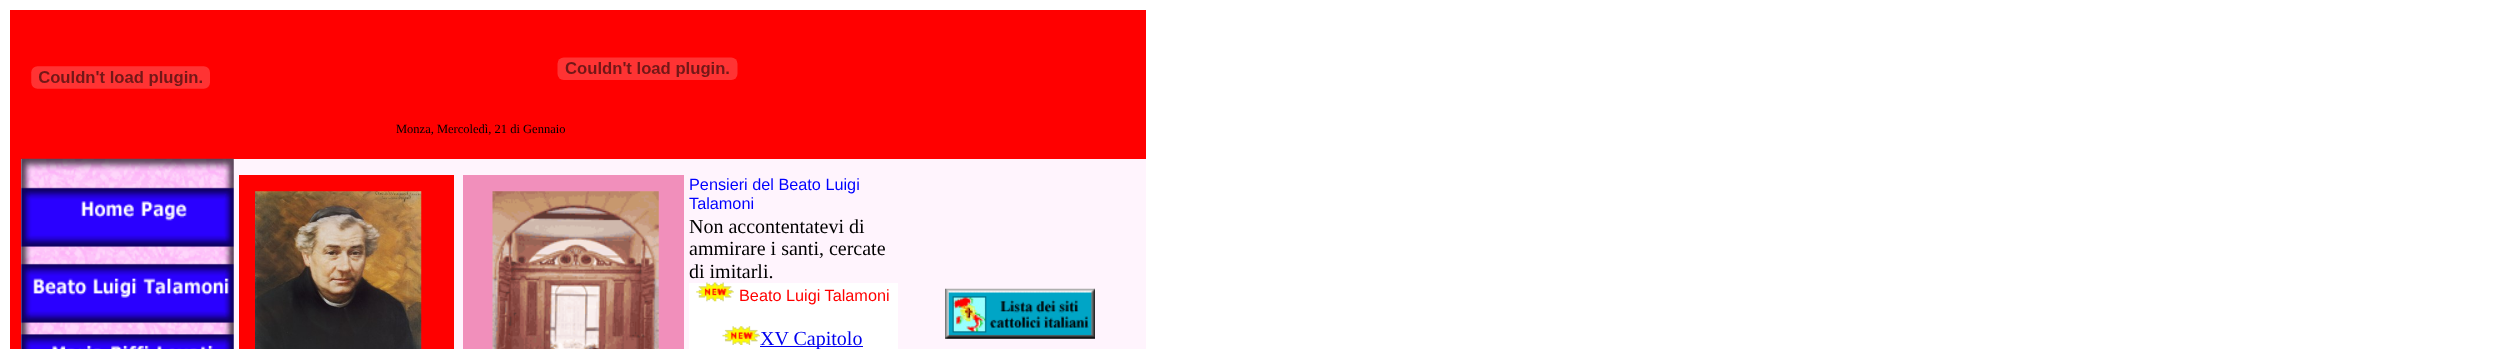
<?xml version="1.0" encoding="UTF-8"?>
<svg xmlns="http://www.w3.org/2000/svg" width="2511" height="349">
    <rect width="100%" height="100%" fill="#FFFFFF"/>
    <rect x="10" y="10" width="1136" height="149" fill="#FF0000"/>
    <image x="31" y="66" width="179" height="23" href="img_01.png"/>
    <image x="557" y="57" width="181" height="23" href="img_02.png"/>
    <text x="396" y="133" font-family="Liberation Serif" font-size="12.5" fill="#000000">Monza, Mercoledì, 21 di Gennaio</text>
    <rect x="21" y="159" width="1125" height="190" fill="#FFF4FD"/>
    <rect x="10" y="159" width="11" height="190" fill="#FF0000"/>
    <image x="21" y="158" width="213" height="191" href="img_03.png"/>
    <rect x="239" y="175" width="215" height="174" fill="#FF0000"/>
    <image x="255" y="191" width="167" height="158" href="img_04.png"/>
    <rect x="463" y="175" width="221" height="174" fill="#F18FBB"/>
    <image x="492" y="191" width="167" height="158" href="img_05.png"/>
    <text font-family="Liberation Sans" font-size="16.25" fill="#0000FF">
        <tspan x="689" y="190">Pensieri del Beato Luigi</tspan>
        <tspan x="689" y="209">Talamoni</tspan>
    </text>
    <text font-family="Liberation Serif" font-size="20" fill="#000000">
        <tspan x="689" y="233">Non accontentatevi di</tspan>
        <tspan x="689" y="255">ammirare i santi, cercate</tspan>
        <tspan x="689" y="278">di imitarli.</tspan>
    </text>
    <rect x="689" y="283" width="209" height="66" fill="#FFFFFF"/>
    <image x="696" y="282" width="38" height="20" href="img_06.png"/>
    <text x="739" y="301" font-family="Liberation Sans" font-size="16.25" fill="#FF0000">Beato Luigi Talamoni</text>
    <image x="722" y="326" width="38" height="19" href="img_07.png"/>
    <rect x="760" y="346" width="103" height="1" fill="#0000EE"/>
    <text x="760" y="345" font-family="Liberation Serif" font-size="20" fill="#0000EE">XV Capitolo</text>
    <image x="945" y="288" width="150" height="51" href="img_08.png"/>
</svg>
